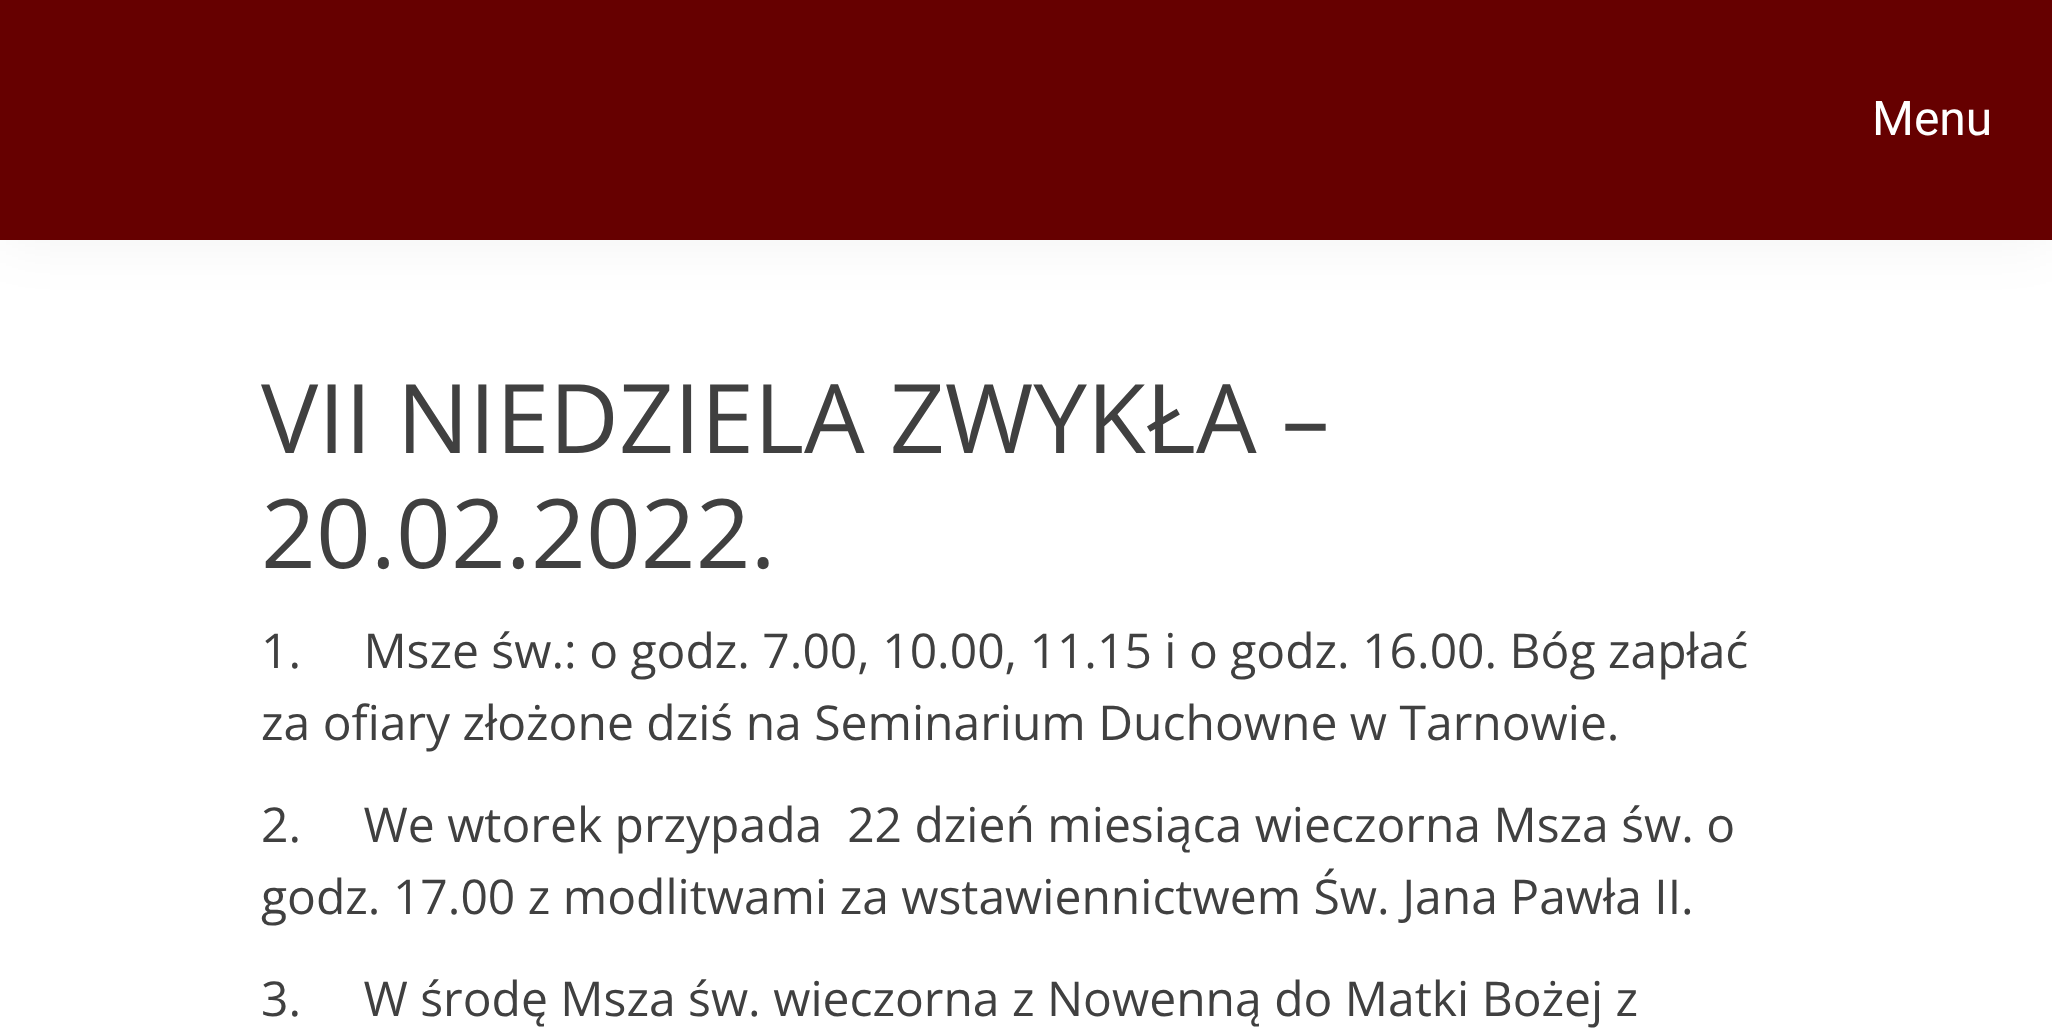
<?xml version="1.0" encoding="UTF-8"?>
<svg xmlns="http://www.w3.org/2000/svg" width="2052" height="1036">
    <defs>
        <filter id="blur1" x="-50%" y="-200%" width="200%" height="500%"><feGaussianBlur stdDeviation="30"/></filter>
    </defs>
    <rect width="100%" height="100%" fill="#FFFFFF"/>
    <rect x="0" y="0" width="2052" height="240" fill="#000000" fill-opacity="0.05" filter="url(#blur1)"/>
    <rect x="0" y="0" width="2052" height="240" fill="#660000"/>
    <text x="1872" y="135" font-family="Roboto" font-size="48" fill="#FFFFFF">Menu</text>
    <text font-family="Open Sans" font-size="96" fill="#404040">
        <tspan x="261" y="453">VII NIEDZIELA ZWYKŁA –</tspan>
        <tspan x="261" y="568">20.02.2022.</tspan>
    </text>
    <text font-family="Open Sans" font-size="48" fill="#404040" xml:space="preserve"><tspan x="261" y="668">1.     Msze św.: o godz. 7.00, 10.00, 11.15 i o godz. 16.00. Bóg zapłać</tspan><tspan x="261" y="740">za ofiary złożone dziś na Seminarium Duchowne w Tarnowie.</tspan></text>
    <text font-family="Open Sans" font-size="48" fill="#404040" xml:space="preserve"><tspan x="261" y="842">2.     We wtorek przypada  22 dzień miesiąca wieczorna Msza św. o</tspan><tspan x="261" y="914">godz. 17.00 z modlitwami za wstawiennictwem Św. Jana Pawła II.</tspan></text>
    <text x="261" y="1016" font-family="Open Sans" font-size="48" fill="#404040" xml:space="preserve">3.     W środę Msza św. wieczorna z Nowenną do Matki Bożej z</text>
</svg>
